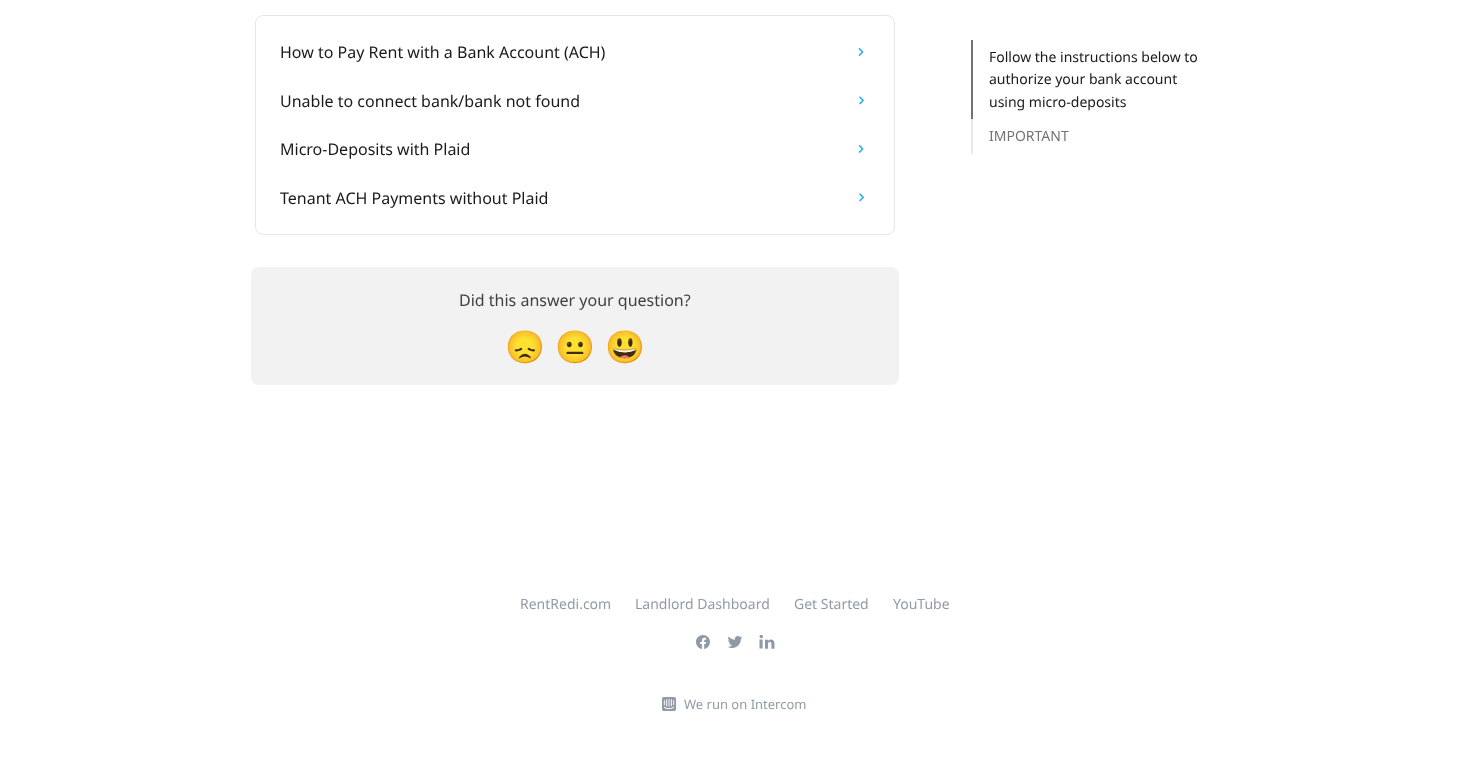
<?xml version="1.0" encoding="UTF-8"?>
<svg xmlns="http://www.w3.org/2000/svg" width="1469" height="762">
    <rect width="100%" height="100%" fill="#FFFFFF"/>
    <rect x="255.5" y="15.5" width="639" height="219" rx="7.5" fill="none" stroke="#E6E6E6"/>
    <text x="280" y="58" font-family="Noto Sans" font-size="16" fill="#1A1A1A">How to Pay Rent with a Bank Account (ACH)</text>
    <image x="858" y="48" width="6" height="8" href="img_01.png"/>
    <text x="280" y="107" font-family="Noto Sans" font-size="16" fill="#1A1A1A">Unable to connect bank/bank not found</text>
    <image x="859" y="96" width="5" height="9" href="img_02.png"/>
    <text x="280" y="155" font-family="Noto Sans" font-size="16" fill="#1A1A1A">Micro-Deposits with Plaid</text>
    <image x="858" y="144" width="6" height="9" href="img_03.png"/>
    <text x="280" y="204" font-family="Noto Sans" font-size="16" fill="#1A1A1A">Tenant ACH Payments without Plaid</text>
    <image x="859" y="193" width="5" height="9" href="img_04.png"/>
    <rect x="251" y="267" width="648" height="118" rx="8" fill="#F2F2F2"/>
    <text x="459" y="306" font-family="Noto Sans" font-size="16" fill="#404040">Did this answer your question?</text>
    <text x="505" y="358" font-family="Noto Color Emoji" font-size="32" fill="#404040">😞</text>
    <text x="555" y="358" font-family="Noto Color Emoji" font-size="32" fill="#404040">😐</text>
    <text x="605" y="358" font-family="Noto Color Emoji" font-size="32" fill="#404040">😃</text>
    <rect x="971" y="40" width="2" height="79" fill="#737373"/>
    <text font-family="Noto Sans" font-size="14" fill="#1A1A1A">
        <tspan x="989" y="62">Follow the instructions below to</tspan>
        <tspan x="989" y="84">authorize your bank account</tspan>
        <tspan x="989" y="107">using micro-deposits</tspan>
    </text>
    <rect x="971" y="119" width="2" height="35" fill="#E5E7EB"/>
    <text x="989" y="141" font-family="Noto Sans" font-size="14" fill="#737373">IMPORTANT</text>
    <text x="520" y="609" font-family="Noto Sans" font-size="14" fill="#929BA5">RentRedi.com</text>
    <text x="635" y="609" font-family="Noto Sans" font-size="14" fill="#929BA5">Landlord Dashboard</text>
    <text x="794" y="609" font-family="Noto Sans" font-size="14" fill="#929BA5">Get Started</text>
    <text x="893" y="609" font-family="Noto Sans" font-size="14" fill="#929BA5">YouTube</text>
    <image x="696" y="635" width="14" height="14" href="img_05.png"/>
    <image x="728" y="636" width="15" height="12" href="img_06.png"/>
    <image x="759" y="635" width="16" height="14" href="img_07.png"/>
    <image x="662" y="697" width="14" height="14" href="img_08.png"/>
    <text x="684" y="709" font-family="Noto Sans" font-size="13" fill="#929BA5">We run on Intercom</text>
</svg>
